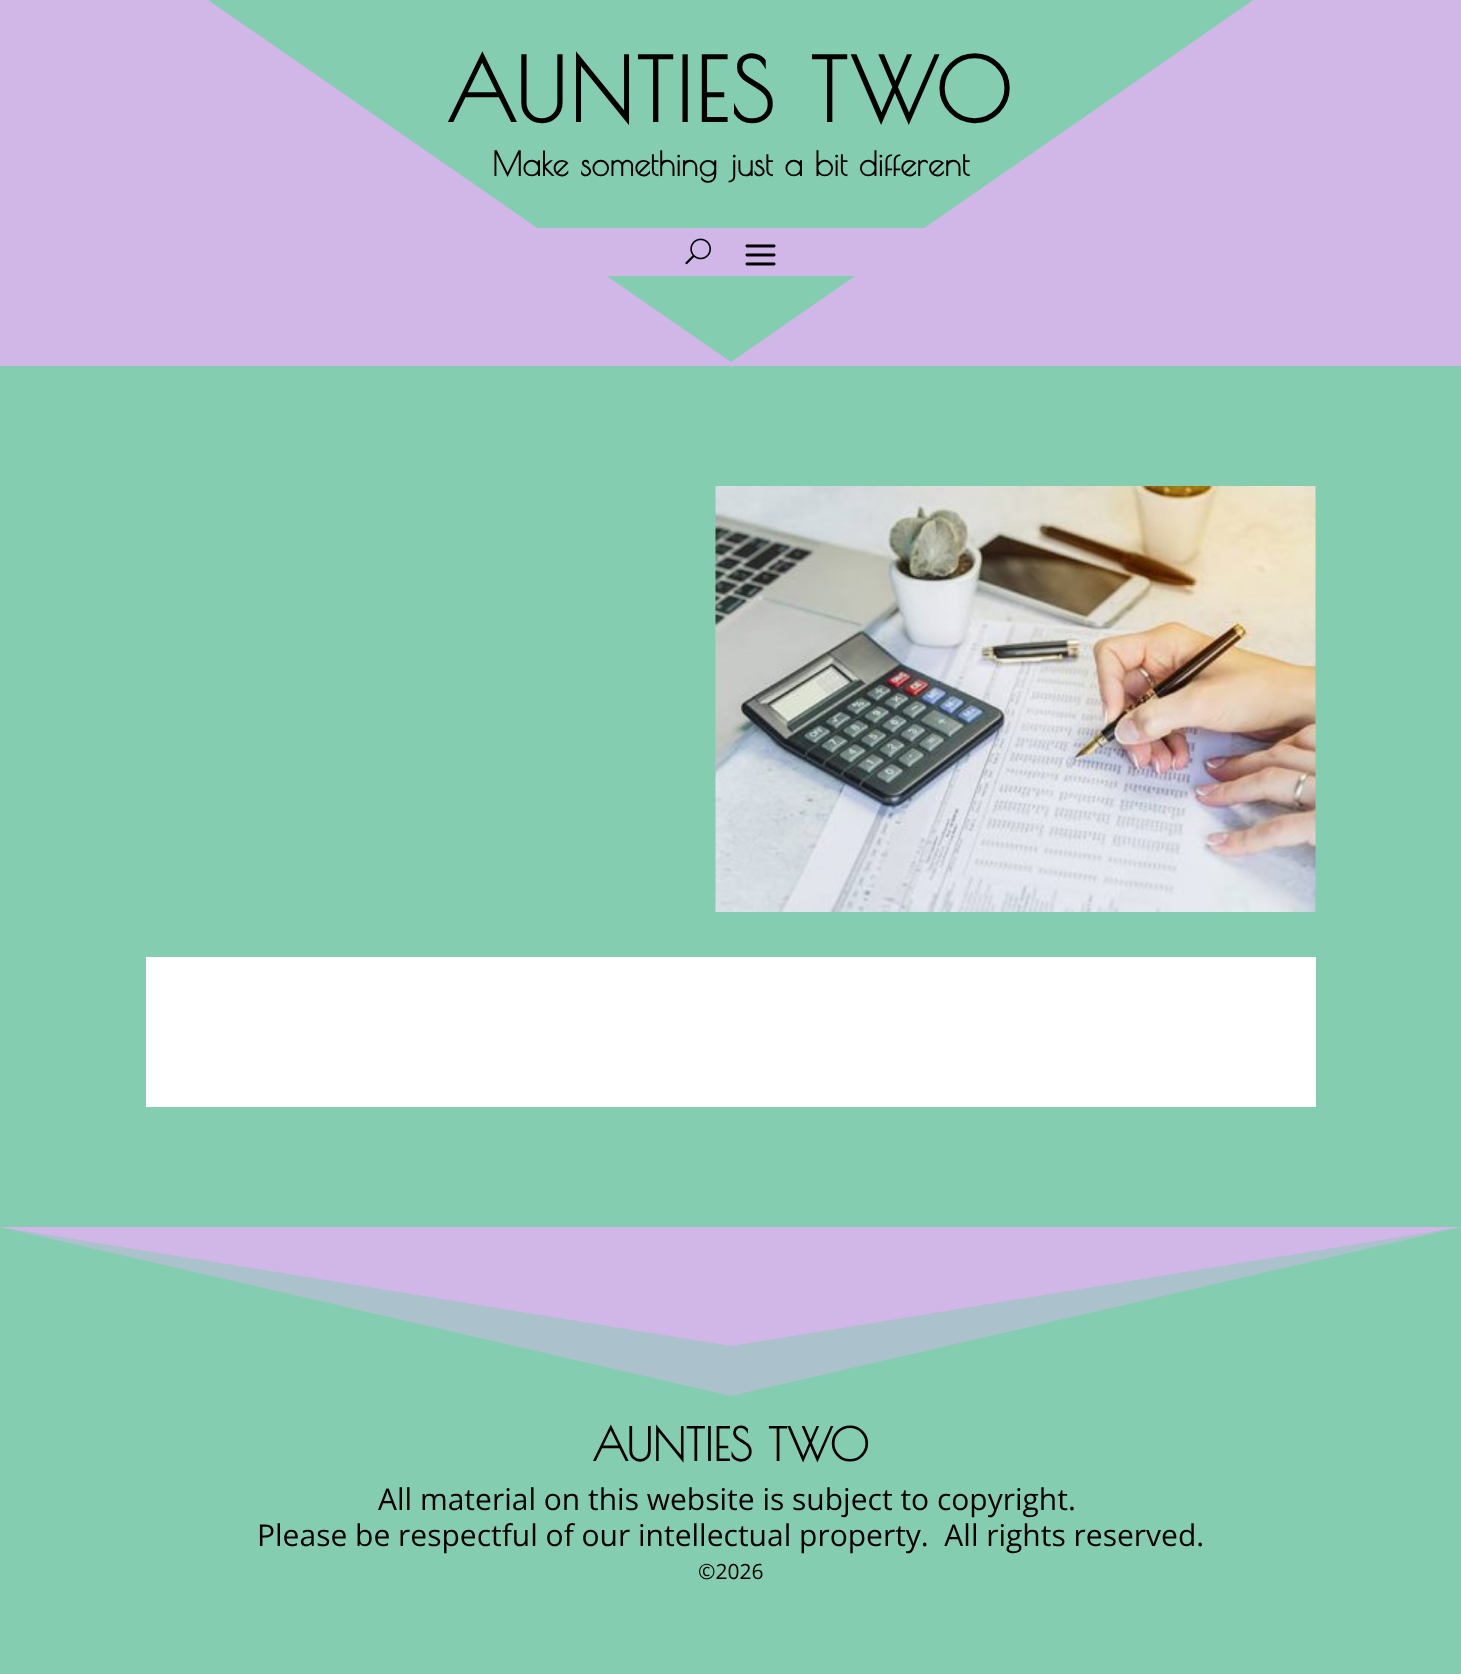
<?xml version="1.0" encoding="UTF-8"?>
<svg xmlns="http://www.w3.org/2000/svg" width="1461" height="1674">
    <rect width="100%" height="100%" fill="#85CDB1"/>
    <path d="M 731 362 L 0 -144 V 366 H 1461 V -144 Z" fill="#D0B7E8"/>
    <text x="446" y="122" font-family="Poiret One" font-size="87" font-weight="700" letter-spacing="3" fill="#000000">AUNTIES TWO</text>
    <text x="492" y="176" font-family="Poiret One" font-size="33" font-weight="700" fill="#000000">Make something just a bit different</text>
    <rect x="29" y="228" width="1404" height="48" rx="15" fill="#D0B7E8"/>
    <image x="685" y="238" width="26" height="27" href="img_01.png"/>
    <image x="745" y="244" width="31" height="22" href="img_02.png"/>
    <image x="715" y="486" width="601" height="426" href="img_03.png"/>
    <rect x="146" y="957" width="1170" height="150" fill="#FFFFFF"/>
    <path d="M 731 1396 L 1461 1227 H 0 Z" fill="#ABC2CC"/>
    <path d="M 731 1346 L 1461 1227 H 0 Z" fill="#D0B7E8"/>
    <text x="592" y="1461" font-family="Poiret One" font-size="45" font-weight="700" fill="#000000">AUNTIES TWO</text>
    <text x="378" y="1510" font-family="Open Sans" font-size="30" fill="#000000">All material on this website is subject to copyright.</text>
    <text x="257" y="1546" font-family="Open Sans" font-size="30" fill="#000000" xml:space="preserve">Please be respectful of our intellectual property.  All rights reserved.</text>
    <text x="698" y="1579" font-family="Open Sans" font-size="21" fill="#000000">©2026</text>
</svg>
